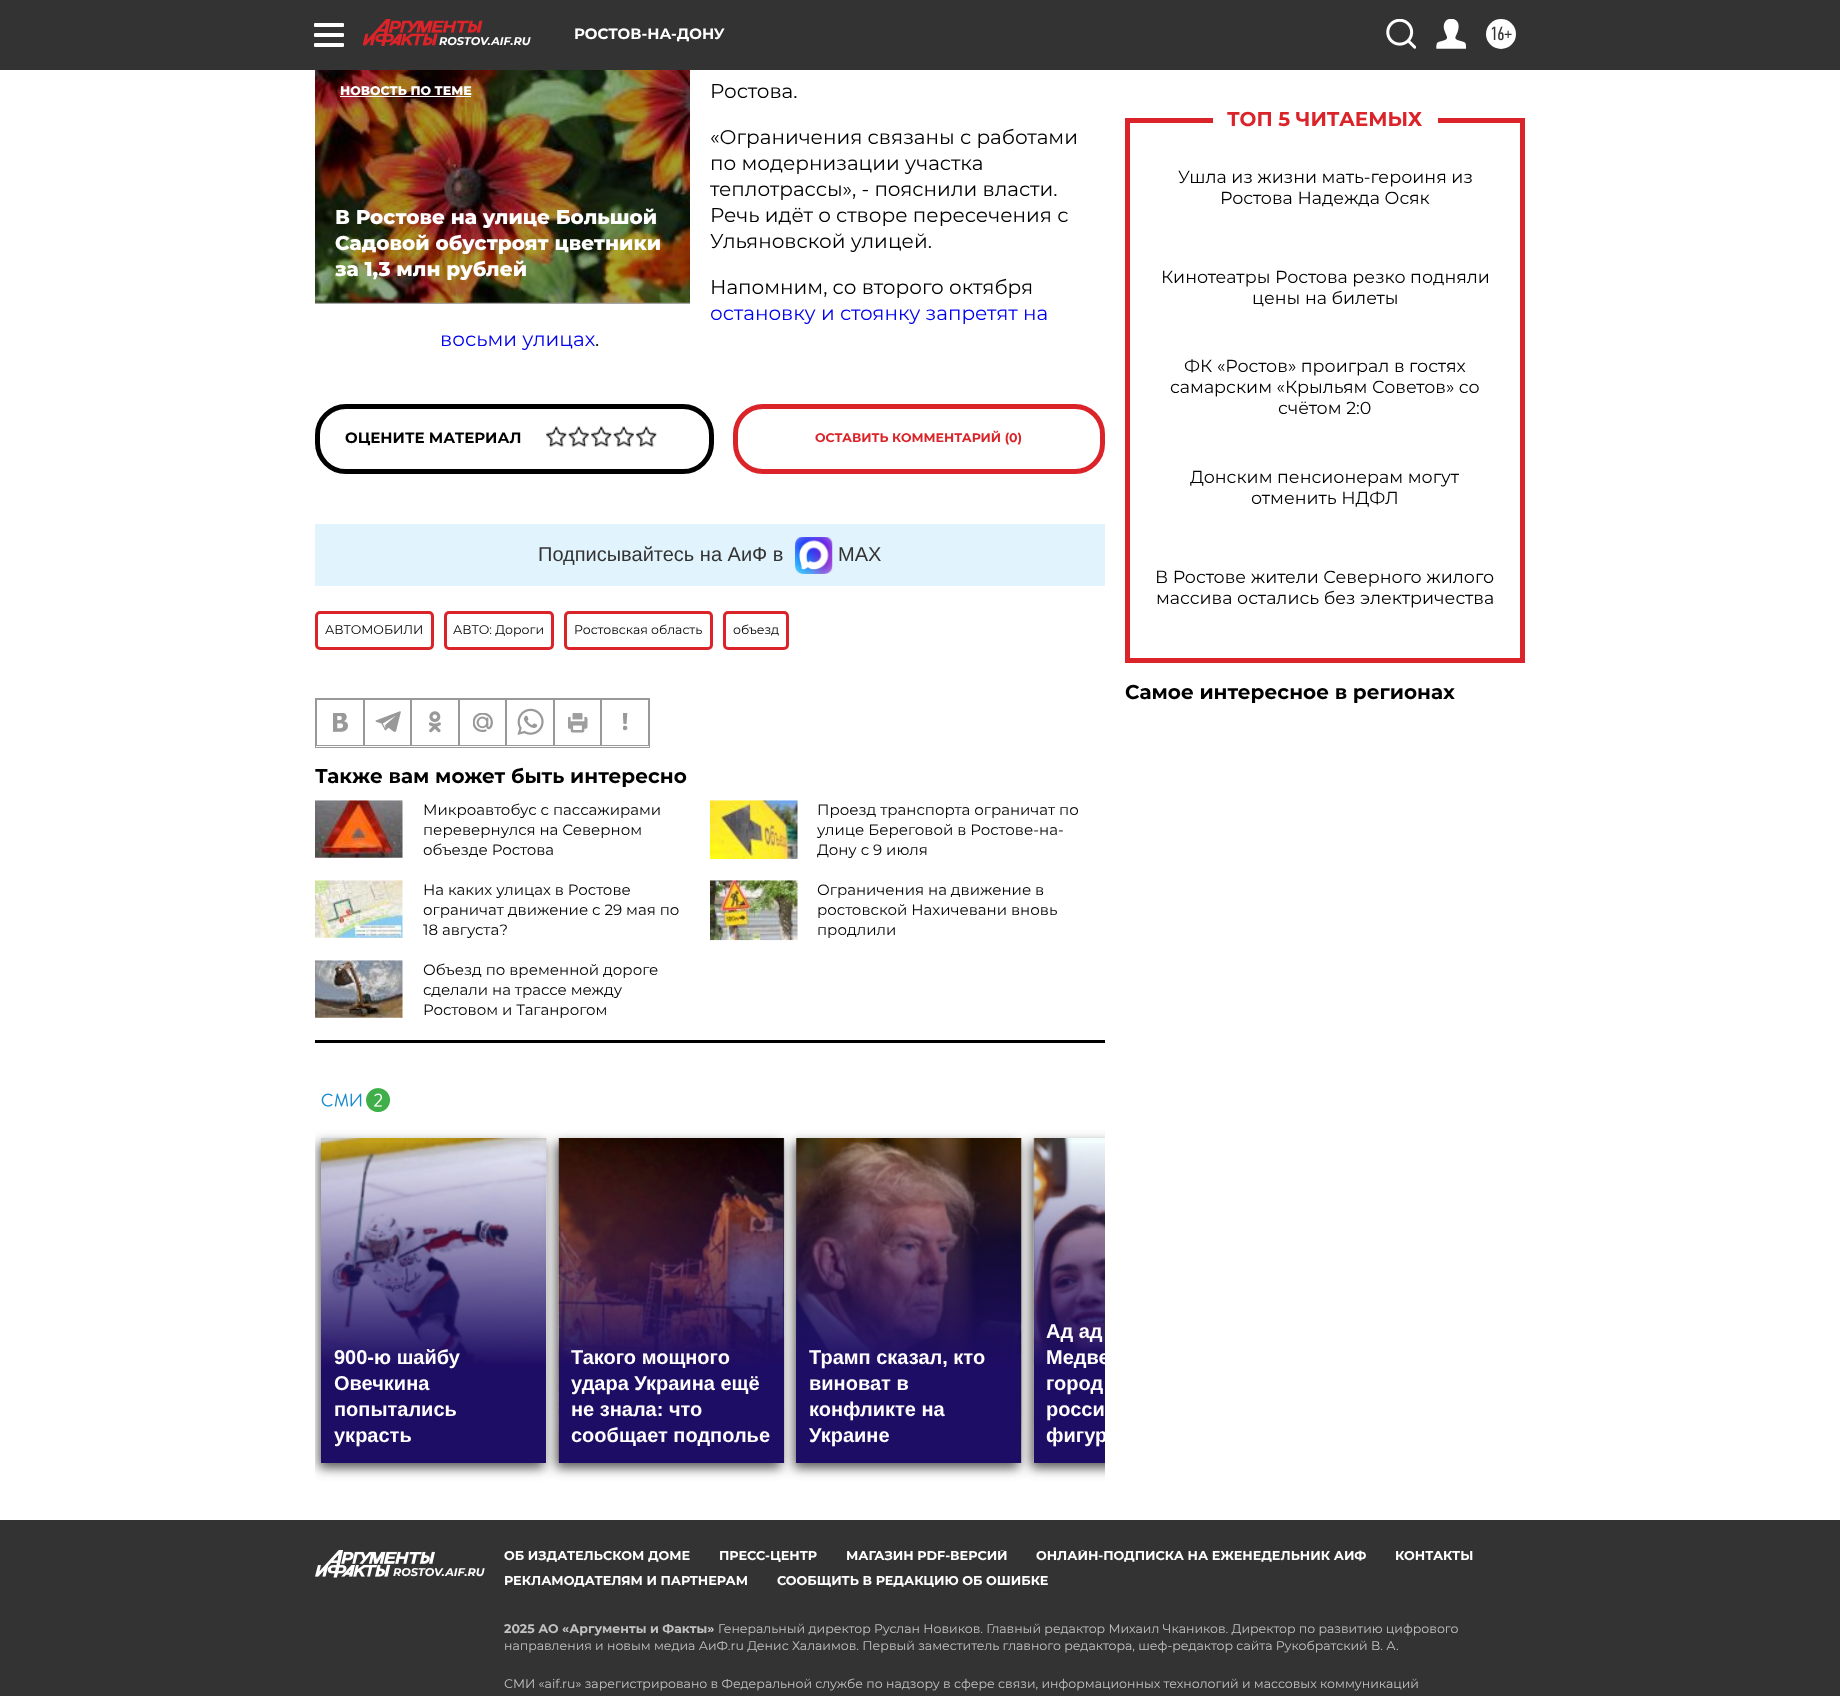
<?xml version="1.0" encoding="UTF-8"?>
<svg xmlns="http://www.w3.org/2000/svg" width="1840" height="1696">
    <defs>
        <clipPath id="clip1"><rect x="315" y="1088" width="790" height="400"/></clipPath>
        <filter id="blur1" x="-50%" y="-200%" width="200%" height="500%"><feGaussianBlur stdDeviation="6"/></filter>
        <linearGradient id="g1" gradientUnits="userSpaceOnUse" x1="434" y1="1463" x2="434" y2="1138"><stop offset="0.3" stop-color="#1E0D64"/><stop offset="1" stop-color="#1E0D64" stop-opacity="0"/></linearGradient>
        <linearGradient id="g2" gradientUnits="userSpaceOnUse" x1="671" y1="1463" x2="671" y2="1138"><stop offset="0.3" stop-color="#1E0D64"/><stop offset="1" stop-color="#1E0D64" stop-opacity="0"/></linearGradient>
        <linearGradient id="g3" gradientUnits="userSpaceOnUse" x1="909" y1="1463" x2="909" y2="1138"><stop offset="0.3" stop-color="#1E0D64"/><stop offset="1" stop-color="#1E0D64" stop-opacity="0"/></linearGradient>
        <linearGradient id="g4" gradientUnits="userSpaceOnUse" x1="1146" y1="1463" x2="1146" y2="1138"><stop offset="0.3" stop-color="#1E0D64"/><stop offset="1" stop-color="#1E0D64" stop-opacity="0"/></linearGradient>
        <clipPath id="clip2"><rect x="1034" y="1138" width="71" height="325"/></clipPath>
        <clipPath id="clip3"><rect x="504" y="1550" width="1021" height="50"/></clipPath>
    </defs>
    <rect width="100%" height="100%" fill="#FFFFFF"/>
    <rect x="315" y="302" width="375" height="2" fill="#A6A6A6"/>
    <rect x="0" y="0" width="1840" height="70" fill="#333333"/>
    <rect x="314" y="23" width="30" height="4" rx="1" fill="#FFFFFF"/>
    <rect x="314" y="33" width="30" height="4" rx="1" fill="#FFFFFF"/>
    <rect x="314" y="43" width="30" height="4" rx="1" fill="#FFFFFF"/>
    <image x="363" y="19" width="120" height="27" href="img_01.png"/>
    <text x="439" y="45" font-family="Montserrat" font-size="11.25" font-weight="700" font-style="italic" fill="#FFFFFF">ROSTOV.AIF.RU</text>
    <text x="574" y="39" font-family="Montserrat" font-size="15" font-weight="700" fill="#FFFFFF">РОСТОВ-НА-ДОНУ</text>
    <image x="1386" y="19" width="30" height="30" href="img_02.png"/>
    <image x="1436" y="19" width="30" height="30" href="img_03.png"/>
    <circle cx="1501" cy="34" r="15" fill="#FFFFFF"/>
    <text x="1490" y="40" font-family="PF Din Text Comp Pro" font-size="19" fill="#333333">16+</text>
    <image x="315" y="70" width="375" height="233" href="img_04.png"/>
    <text x="340" y="95" font-family="Montserrat" font-size="12.5" font-weight="800" fill="#FFFFFF">НОВОСТЬ ПО ТЕМЕ</text>
    <rect x="340" y="96" width="131" height="1" fill="#FFFFFF"/>
    <text font-family="Montserrat" font-size="20" font-weight="800" fill="#FFFFFF">
        <tspan x="335" y="224">В Ростове на улице Большой</tspan>
        <tspan x="335" y="250">Садовой обустроят цветники</tspan>
        <tspan x="335" y="276">за 1,3 млн рублей</tspan>
    </text>
    <text x="710" y="98" font-family="Montserrat" font-size="20" fill="#000000">Ростова.</text>
    <text font-family="Montserrat" font-size="20" fill="#000000">
        <tspan x="710" y="144">«Ограничения связаны с работами</tspan>
        <tspan x="710" y="170">по модернизации участка</tspan>
        <tspan x="710" y="196">теплотрассы», - пояснили власти.</tspan>
        <tspan x="710" y="222">Речь идёт о створе пересечения с</tspan>
        <tspan x="710" y="248">Ульяновской улицей.</tspan>
    </text>
    <text x="710" y="294" font-family="Montserrat" font-size="20" fill="#000000">Напомним, со второго октября</text>
    <text x="710" y="320" font-family="Montserrat" font-size="20" fill="#0000EE">остановку и стоянку запретят на</text>
    <text x="440" y="346" font-family="Montserrat" font-size="20" fill="#0000EE">восьми улицах</text>
    <text x="595" y="346" font-family="Montserrat" font-size="20" fill="#000000">.</text>
    <rect x="317.5" y="406.5" width="394" height="65" rx="28.5" fill="none" stroke="#000000" stroke-width="5"/>
    <text x="345" y="443" font-family="Montserrat" font-size="15" font-weight="700" fill="#000000">ОЦЕНИТЕ МАТЕРИАЛ</text>
    <image x="546" y="426" width="21" height="21" href="img_05.png"/>
    <image x="568" y="426" width="21" height="21" href="img_06.png"/>
    <image x="591" y="426" width="21" height="21" href="img_05.png"/>
    <image x="613" y="426" width="21" height="21" href="img_07.png"/>
    <image x="636" y="426" width="21" height="21" href="img_05.png"/>
    <rect x="735.5" y="406.5" width="367" height="65" rx="27.5" fill="none" stroke="#DA2429" stroke-width="5"/>
    <text x="815" y="442" font-family="Montserrat" font-size="12.5" font-weight="700" fill="#DA2429">ОСТАВИТЬ КОММЕНТАРИЙ (0)</text>
    <rect x="315" y="524" width="790" height="62" fill="#E1F3FC"/>
    <text x="538" y="561" font-family="Liberation Sans" font-size="20" fill="#333333">Подписывайтесь на АиФ в</text>
    <image x="795" y="537" width="38" height="37" href="img_08.png"/>
    <text x="838" y="561" font-family="Liberation Sans" font-size="20" fill="#333333">MAX</text>
    <rect x="316.5" y="612.5" width="116" height="36" rx="3.5" fill="none" stroke="#DA2429" stroke-width="3"/>
    <text x="325" y="634" font-family="Montserrat" font-size="12.5" fill="#000000">АВТОМОБИЛИ</text>
    <rect x="445.5" y="612.5" width="107" height="36" rx="3.5" fill="none" stroke="#DA2429" stroke-width="3"/>
    <text x="453" y="634" font-family="Montserrat" font-size="12.5" fill="#000000">АВТО: Дороги</text>
    <rect x="565.5" y="612.5" width="146" height="36" rx="3.5" fill="none" stroke="#DA2429" stroke-width="3"/>
    <text x="574" y="634" font-family="Montserrat" font-size="12.5" fill="#000000">Ростовская область</text>
    <rect x="724.5" y="612.5" width="63" height="36" rx="3.5" fill="none" stroke="#DA2429" stroke-width="3"/>
    <text x="733" y="634" font-family="Montserrat" font-size="12.5" fill="#000000">объезд</text>
    <rect x="315.5" y="698.5" width="334" height="49" fill="none" stroke="#999999"/>
    <rect x="316.5" y="699.5" width="47" height="46" fill="none" stroke="#999999"/>
    <image x="333" y="713" width="15" height="19" href="img_09.png"/>
    <rect x="364.5" y="699.5" width="46" height="46" fill="none" stroke="#999999"/>
    <image x="375" y="711" width="26" height="21" href="img_10.png"/>
    <rect x="411.5" y="699.5" width="47" height="46" fill="none" stroke="#999999"/>
    <image x="429" y="711" width="12" height="22" href="img_11.png"/>
    <rect x="459.5" y="699.5" width="46" height="46" fill="none" stroke="#999999"/>
    <image x="473" y="713" width="20" height="19" href="img_12.png"/>
    <rect x="506.5" y="699.5" width="47" height="46" fill="none" stroke="#999999"/>
    <image x="517" y="708" width="27" height="27" href="img_13.png"/>
    <rect x="554.5" y="699.5" width="46" height="46" fill="none" stroke="#999999"/>
    <image x="568" y="713" width="20" height="20" href="img_14.png"/>
    <rect x="601.5" y="699.5" width="47" height="46" fill="none" stroke="#999999"/>
    <image x="623" y="713" width="5" height="18" href="img_15.png"/>
    <text x="315" y="783" font-family="Montserrat" font-size="20" font-weight="700" fill="#000000">Также вам может быть интересно</text>
    <rect x="315" y="1040" width="790" height="3" fill="#000000"/>
    <image x="315" y="800" width="88" height="58" href="img_16.png"/>
    <text font-family="Montserrat" font-size="15" fill="#000000">
        <tspan x="423" y="815">Микроавтобус с пассажирами</tspan>
        <tspan x="423" y="835">перевернулся на Северном</tspan>
        <tspan x="423" y="855">объезде Ростова</tspan>
    </text>
    <image x="710" y="800" width="88" height="59" href="img_17.png"/>
    <text font-family="Montserrat" font-size="15" fill="#000000">
        <tspan x="817" y="815">Проезд транспорта ограничат по</tspan>
        <tspan x="817" y="835">улице Береговой в Ростове-на-</tspan>
        <tspan x="817" y="855">Дону с 9 июля</tspan>
    </text>
    <image x="315" y="880" width="88" height="58" href="img_18.png"/>
    <text font-family="Montserrat" font-size="15" fill="#000000">
        <tspan x="423" y="895">На каких улицах в Ростове</tspan>
        <tspan x="423" y="915">ограничат движение с 29 мая по</tspan>
        <tspan x="423" y="935">18 августа?</tspan>
    </text>
    <image x="710" y="880" width="88" height="61" href="img_19.png"/>
    <text font-family="Montserrat" font-size="15" fill="#000000">
        <tspan x="817" y="895">Ограничения на движение в</tspan>
        <tspan x="817" y="915">ростовской Нахичевани вновь</tspan>
        <tspan x="817" y="935">продлили</tspan>
    </text>
    <image x="315" y="960" width="88" height="58" href="img_20.png"/>
    <text font-family="Montserrat" font-size="15" fill="#000000">
        <tspan x="423" y="975">Объезд по временной дороге</tspan>
        <tspan x="423" y="995">сделали на трассе между</tspan>
        <tspan x="423" y="1015">Ростовом и Таганрогом</tspan>
    </text>
    <image x="321" y="1088" width="69" height="25" href="img_21.png"/>
    <g clip-path="url(#clip1)">
        <rect x="319" y="1143" width="225" height="325" fill="#565454" filter="url(#blur1)"/>
    </g>
    <image x="321" y="1138" width="226" height="325" href="img_22.png"/>
    <rect x="556" y="1143" width="225" height="325" fill="#565454" filter="url(#blur1)"/>
    <rect x="321" y="1143" width="225" height="320" fill="url(#g1)"/>
    <text font-family="Liberation Sans" font-size="20" font-weight="700" fill="#FFFFFF">
        <tspan x="334" y="1364">900-ю шайбу</tspan>
        <tspan x="334" y="1390">Овечкина</tspan>
        <tspan x="334" y="1416">попытались</tspan>
        <tspan x="334" y="1442">украсть</tspan>
    </text>
    <rect x="559" y="1138" width="225" height="226" fill="#333333"/>
    <image x="558" y="1138" width="227" height="325" href="img_23.png"/>
    <rect x="794" y="1143" width="225" height="325" fill="#565454" filter="url(#blur1)"/>
    <rect x="559" y="1144" width="225" height="319" fill="url(#g2)"/>
    <text font-family="Liberation Sans" font-size="20" font-weight="700" fill="#FFFFFF">
        <tspan x="571" y="1364">Такого мощного</tspan>
        <tspan x="571" y="1390">удара Украина ещё</tspan>
        <tspan x="571" y="1416">не знала: что</tspan>
        <tspan x="571" y="1442">сообщает подполье</tspan>
    </text>
    <image x="796" y="1138" width="226" height="325" href="img_24.png"/>
    <g clip-path="url(#clip1)">
        <rect x="1031" y="1143" width="225" height="325" fill="#565454" filter="url(#blur1)"/>
    </g>
    <rect x="796" y="1144" width="225" height="319" fill="url(#g3)"/>
    <text font-family="Liberation Sans" font-size="20" font-weight="700" fill="#FFFFFF">
        <tspan x="809" y="1364">Трамп сказал, кто</tspan>
        <tspan x="809" y="1390">виноват в</tspan>
        <tspan x="809" y="1416">конфликте на</tspan>
        <tspan x="809" y="1442">Украине</tspan>
    </text>
    <image x="1033" y="1138" width="72" height="325" href="img_25.png"/>
    <rect x="1034" y="1143" width="71" height="320" fill="url(#g4)"/>
    <text x="1046" y="1338" font-family="Liberation Sans" font-size="20" font-weight="700" fill="#FFFFFF">Ад ад</text>
    <g clip-path="url(#clip2)">
        <text x="1046" y="1364" font-family="Liberation Sans" font-size="20" font-weight="700" fill="#FFFFFF">Медве</text>
    </g>
    <text font-family="Liberation Sans" font-size="20" font-weight="700" fill="#FFFFFF">
        <tspan x="1046" y="1390">город</tspan>
        <tspan x="1046" y="1416">росси</tspan>
    </text>
    <g clip-path="url(#clip2)">
        <text x="1046" y="1442" font-family="Liberation Sans" font-size="20" font-weight="700" fill="#FFFFFF">фигур</text>
    </g>
    <rect x="1520" y="118" width="5" height="545" fill="#DA2429"/>
    <rect x="1125" y="658" width="400" height="5" fill="#DA2429"/>
    <rect x="1125" y="118" width="5" height="545" fill="#DA2429"/>
    <rect x="1125" y="118" width="88" height="5" fill="#DA2429"/>
    <text x="1227" y="126" font-family="Montserrat" font-size="20" font-weight="700" fill="#DA2429">ТОП 5 ЧИТАЕМЫХ</text>
    <rect x="1438" y="118" width="87" height="5" fill="#DA2429"/>
    <text x="1178" y="183" font-family="Montserrat" font-size="17.5" fill="#000000">Ушла из жизни мать-героиня из</text>
    <text x="1220" y="204" font-family="Montserrat" font-size="17.5" fill="#000000">Ростова Надежда Осяк</text>
    <text x="1161" y="283" font-family="Montserrat" font-size="17.5" fill="#000000">Кинотеатры Ростова резко подняли</text>
    <text x="1252" y="304" font-family="Montserrat" font-size="17.5" fill="#000000">цены на билеты</text>
    <text x="1184" y="372" font-family="Montserrat" font-size="17.5" fill="#000000">ФК «Ростов» проиграл в гостях</text>
    <text x="1170" y="393" font-family="Montserrat" font-size="17.5" fill="#000000">самарским «Крыльям Советов» со</text>
    <text x="1278" y="414" font-family="Montserrat" font-size="17.5" fill="#000000">счётом 2:0</text>
    <text x="1190" y="483" font-family="Montserrat" font-size="17.5" fill="#000000">Донским пенсионерам могут</text>
    <text x="1251" y="504" font-family="Montserrat" font-size="17.5" fill="#000000">отменить НДФЛ</text>
    <text x="1155" y="583" font-family="Montserrat" font-size="17.5" fill="#000000">В Ростове жители Северного жилого</text>
    <text x="1156" y="604" font-family="Montserrat" font-size="17.5" fill="#000000">массива остались без электричества</text>
    <text x="1125" y="699" font-family="Montserrat" font-size="20" font-weight="700" fill="#000000">Самое интересное в регионах</text>
    <rect x="0" y="1520" width="1840" height="176" fill="#333333"/>
    <image x="315" y="1550" width="120" height="28" href="img_26.png"/>
    <text x="393" y="1576" font-family="Montserrat" font-size="11.25" font-weight="700" font-style="italic" fill="#FFFFFF">ROSTOV.AIF.RU</text>
    <text x="504" y="1560" font-family="Montserrat" font-size="12.75" font-weight="700" fill="#FFFFFF">ОБ ИЗДАТЕЛЬСКОМ ДОМЕ</text>
    <text x="719" y="1560" font-family="Montserrat" font-size="12.75" font-weight="700" fill="#FFFFFF">ПРЕСС-ЦЕНТР</text>
    <g clip-path="url(#clip3)">
        <text x="846" y="1560" font-family="Montserrat" font-size="12.75" font-weight="700" fill="#FFFFFF">МАГАЗИН PDF-ВЕРСИЙ</text>
        <text x="1036" y="1560" font-family="Montserrat" font-size="12.75" font-weight="700" fill="#FFFFFF">ОНЛАЙН-ПОДПИСКА НА ЕЖЕНЕДЕЛЬНИК АИФ</text>
    </g>
    <text x="1395" y="1560" font-family="Montserrat" font-size="12.75" font-weight="700" fill="#FFFFFF">КОНТАКТЫ</text>
    <text x="504" y="1585" font-family="Montserrat" font-size="12.75" font-weight="700" fill="#FFFFFF">РЕКЛАМОДАТЕЛЯМ И ПАРТНЕРАМ</text>
    <text x="777" y="1585" font-family="Montserrat" font-size="12.75" font-weight="700" fill="#FFFFFF">СООБЩИТЬ В РЕДАКЦИЮ ОБ ОШИБКЕ</text>
    <text x="504" y="1633" font-family="Montserrat" font-size="12.5" font-weight="700" fill="#C2C2C2">2025 АО «Аргументы и Факты»</text>
    <text x="718" y="1633" font-family="Montserrat" font-size="12.5" fill="#C2C2C2">Генеральный директор Руслан Новиков. Главный редактор Михаил Чкаников. Директор по развитию цифрового</text>
    <text x="504" y="1650" font-family="Montserrat" font-size="12.5" fill="#C2C2C2">направления и новым медиа АиФ.ru Денис Халаимов. Первый заместитель главного редактора, шеф-редактор сайта Рукобратский В. А.</text>
    <text x="504" y="1688" font-family="Montserrat" font-size="12.5" fill="#C2C2C2">СМИ «aif.ru» зарегистрировано в Федеральной службе по надзору в сфере связи, информационных технологий и массовых коммуникаций</text>
</svg>
